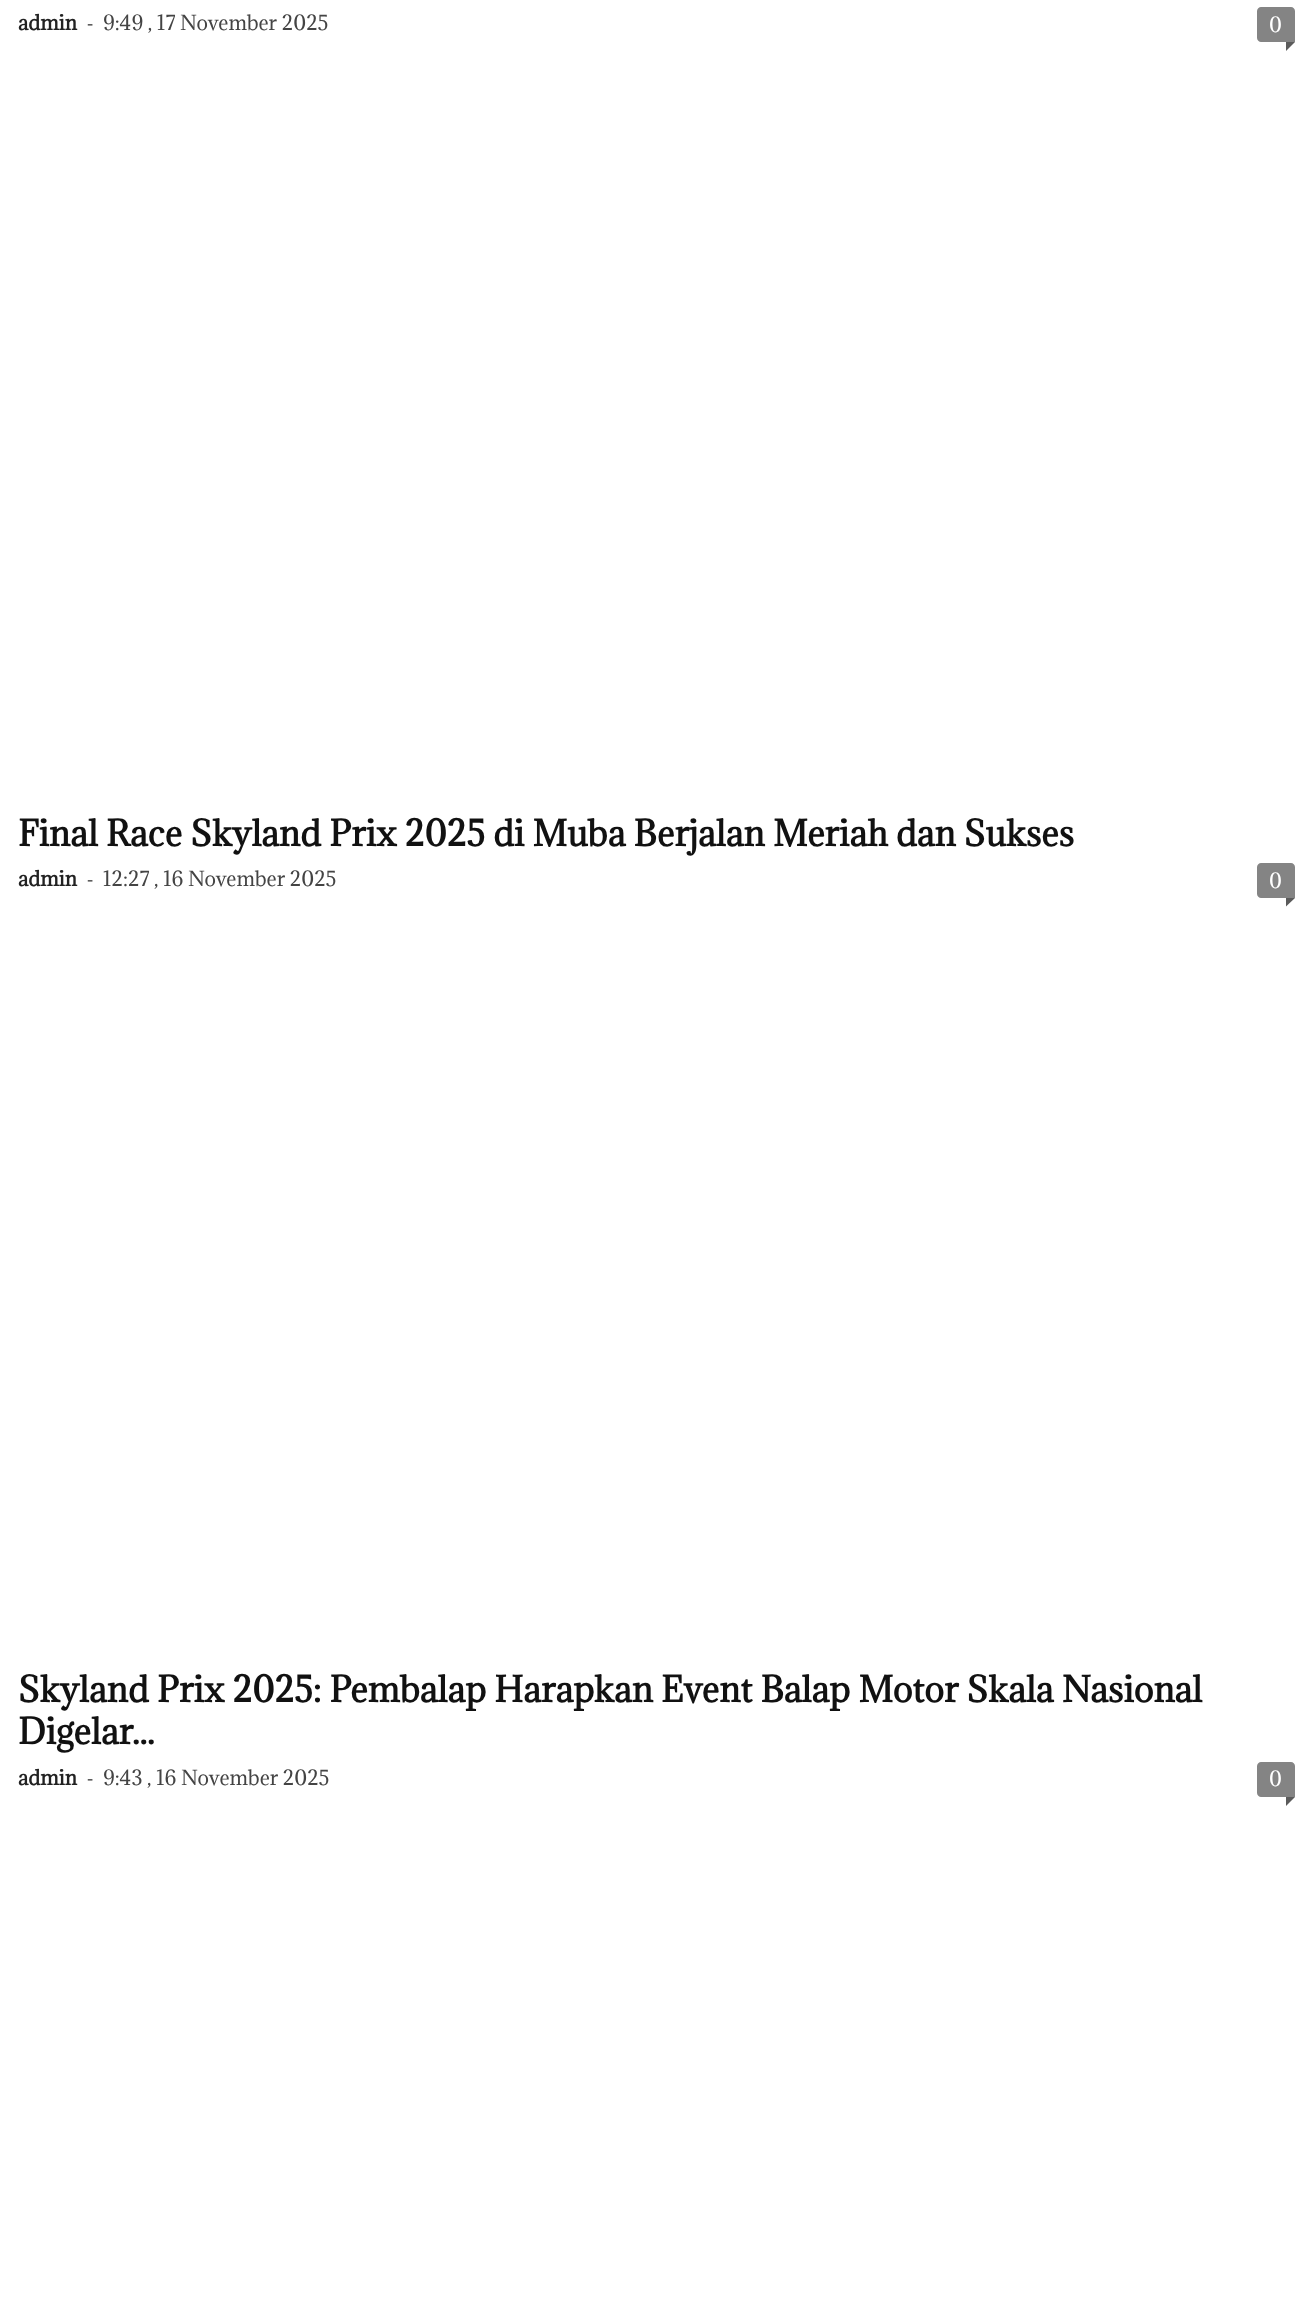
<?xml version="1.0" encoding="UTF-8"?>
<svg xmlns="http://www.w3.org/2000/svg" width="1312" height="2302">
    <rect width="100%" height="100%" fill="#FFFFFF"/>
    <text x="18" y="30" font-family="Adamina" font-size="19.25" font-weight="700" fill="#222222">admin</text>
    <text x="87" y="30" font-family="Open Sans" font-size="19.25" fill="#444444">-</text>
    <text x="103" y="30" font-family="Adamina" font-size="19.25" fill="#444444">9:49 , 17 November 2025</text>
    <path d="M 1261 7 H 1291 C 1293 7 1295 9 1295 11 V 42 H 1261 C 1259 42 1257 40 1257 38 V 11 C 1257 9 1259 7 1261 7 Z" fill="#848484"/>
    <text x="1269" y="32" font-family="Adamina" font-size="19.25" fill="#FFFFFF">0</text>
    <path d="M 1286 42 H 1295 L 1286 51 Z" fill="#5B5B5B"/>
    <text x="18" y="846" font-family="Adamina" font-size="33.25" font-weight="700" fill="#111111">Final Race Skyland Prix 2025 di Muba Berjalan Meriah dan Sukses</text>
    <text x="18" y="886" font-family="Adamina" font-size="19.25" font-weight="700" fill="#222222">admin</text>
    <text x="87" y="886" font-family="Open Sans" font-size="19.25" fill="#444444">-</text>
    <text x="103" y="886" font-family="Adamina" font-size="19.25" fill="#444444">12:27 , 16 November 2025</text>
    <path d="M 1261 863 H 1291 C 1293 863 1295 865 1295 867 V 898 H 1261 C 1259 898 1257 896 1257 894 V 867 C 1257 865 1259 863 1261 863 Z" fill="#848484"/>
    <text x="1269" y="888" font-family="Adamina" font-size="19.25" fill="#FFFFFF">0</text>
    <path d="M 1286 898 H 1295 L 1286 906.5 Z" fill="#5B5B5B"/>
    <text font-family="Adamina" font-size="33.25" font-weight="700" fill="#111111">
        <tspan x="18" y="1702">Skyland Prix 2025: Pembalap Harapkan Event Balap Motor Skala Nasional</tspan>
        <tspan x="18" y="1744">Digelar...</tspan>
    </text>
    <text x="18" y="1785" font-family="Adamina" font-size="19.25" font-weight="700" fill="#222222">admin</text>
    <text x="87" y="1785" font-family="Open Sans" font-size="19.25" fill="#444444">-</text>
    <text x="103" y="1785" font-family="Adamina" font-size="19.25" fill="#444444">9:43 , 16 November 2025</text>
    <path d="M 1261 1762 H 1291 C 1293 1762 1295 1764 1295 1766 V 1797 H 1261 C 1259 1797 1257 1795 1257 1793 V 1766 C 1257 1764 1259 1762 1261 1762 Z" fill="#848484"/>
    <text x="1269" y="1786" font-family="Adamina" font-size="19.25" fill="#FFFFFF">0</text>
    <path d="M 1286 1797 H 1295 L 1286 1806 Z" fill="#5B5B5B"/>
</svg>
